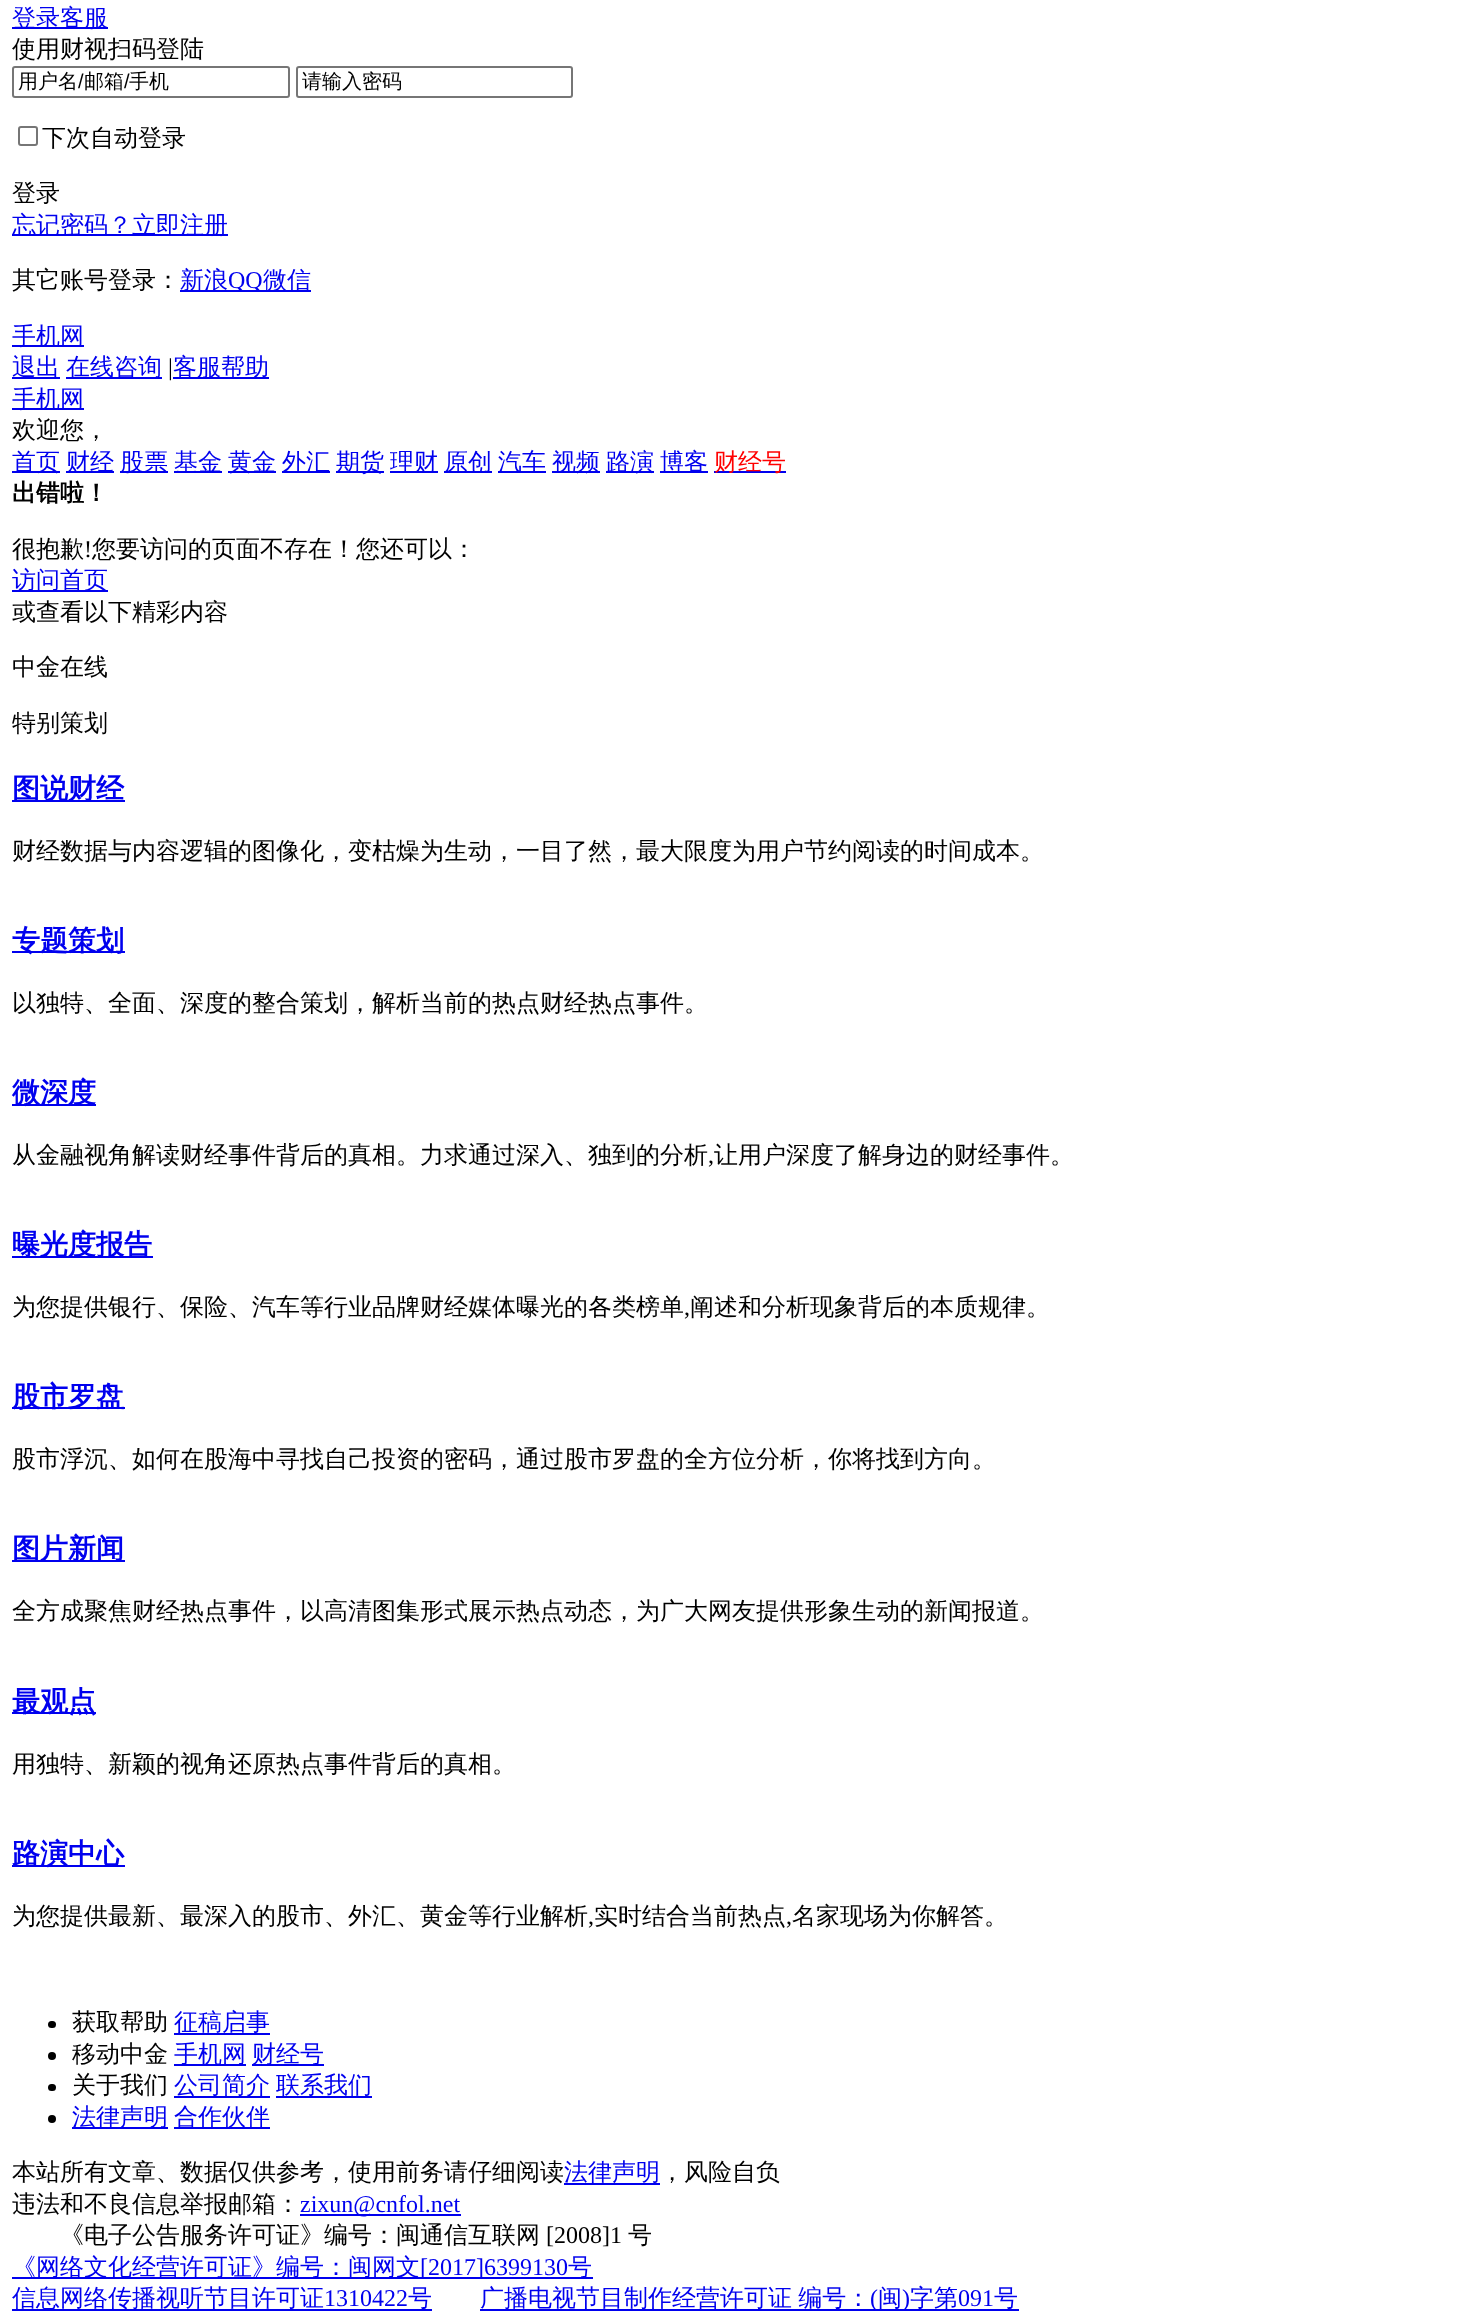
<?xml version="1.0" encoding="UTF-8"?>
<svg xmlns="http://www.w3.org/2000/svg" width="1483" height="2322">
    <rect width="100%" height="100%" fill="#FFFFFF"/>
    <rect x="12" y="27" width="96" height="2" fill="#0000EE"/>
    <text x="12" y="26" font-family="WenQuanYi Zen Hei" font-size="24" font-weight="500" fill="#0000EE">登录客服</text>
    <text x="12" y="57" font-family="WenQuanYi Zen Hei" font-size="24" font-weight="500" fill="#000000">使用财视扫码登陆</text>
    <rect x="13" y="67" width="276" height="30" rx="2" fill="none" stroke="#767676" stroke-width="2"/>
    <text x="18" y="88" font-family="WenQuanYi Zen Hei" font-size="20" font-weight="500" fill="#000000">用户名</text>
    <text x="78" y="88" font-family="Liberation Sans" font-size="20" fill="#000000">/</text>
    <text x="84" y="88" font-family="WenQuanYi Zen Hei" font-size="20" font-weight="500" fill="#000000">邮箱</text>
    <text x="124" y="88" font-family="Liberation Sans" font-size="20" fill="#000000">/</text>
    <text x="129" y="88" font-family="WenQuanYi Zen Hei" font-size="20" font-weight="500" fill="#000000">手机</text>
    <rect x="297" y="67" width="275" height="30" rx="2" fill="none" stroke="#767676" stroke-width="2"/>
    <text x="302" y="88" font-family="WenQuanYi Zen Hei" font-size="20" font-weight="500" fill="#000000">请输入密码</text>
    <rect x="19" y="127" width="18" height="18" rx="2" fill="none" stroke="#767676" stroke-width="2"/>
    <text x="42" y="146" font-family="WenQuanYi Zen Hei" font-size="24" font-weight="500" fill="#000000">下次自动登录</text>
    <text x="12" y="201" font-family="WenQuanYi Zen Hei" font-size="24" font-weight="500" fill="#000000">登录</text>
    <rect x="12" y="234" width="216" height="2" fill="#0000EE"/>
    <text x="12" y="233" font-family="WenQuanYi Zen Hei" font-size="24" font-weight="500" fill="#0000EE">忘记密码？立即注册</text>
    <text x="12" y="288" font-family="WenQuanYi Zen Hei" font-size="24" font-weight="500" fill="#000000">其它账号登录：</text>
    <rect x="180" y="290" width="131" height="2" fill="#0000EE"/>
    <text x="180" y="288" font-family="WenQuanYi Zen Hei" font-size="24" font-weight="500" fill="#0000EE">新浪</text>
    <text x="228" y="288" font-family="Liberation Serif" font-size="24" fill="#0000EE">QQ</text>
    <text x="263" y="288" font-family="WenQuanYi Zen Hei" font-size="24" font-weight="500" fill="#0000EE">微信</text>
    <rect x="12" y="345" width="72" height="2" fill="#0000EE"/>
    <text x="12" y="344" font-family="WenQuanYi Zen Hei" font-size="24" font-weight="500" fill="#0000EE">手机网</text>
    <rect x="12" y="377" width="48" height="2" fill="#0000EE"/>
    <text x="12" y="375" font-family="WenQuanYi Zen Hei" font-size="24" font-weight="500" fill="#0000EE">退出</text>
    <rect x="66" y="377" width="96" height="2" fill="#0000EE"/>
    <text x="66" y="375" font-family="WenQuanYi Zen Hei" font-size="24" font-weight="500" fill="#0000EE">在线咨询</text>
    <text x="168" y="375" font-family="Liberation Serif" font-size="24" fill="#000000">|</text>
    <rect x="173" y="377" width="96" height="2" fill="#0000EE"/>
    <text x="173" y="375" font-family="WenQuanYi Zen Hei" font-size="24" font-weight="500" fill="#0000EE">客服帮助</text>
    <rect x="12" y="408" width="72" height="2" fill="#0000EE"/>
    <text x="12" y="407" font-family="WenQuanYi Zen Hei" font-size="24" font-weight="500" fill="#0000EE">手机网</text>
    <text x="12" y="438" font-family="WenQuanYi Zen Hei" font-size="24" font-weight="500" fill="#000000">欢迎您，</text>
    <rect x="12" y="471" width="48" height="2" fill="#0000EE"/>
    <text x="12" y="470" font-family="WenQuanYi Zen Hei" font-size="24" font-weight="500" fill="#0000EE">首页</text>
    <rect x="66" y="471" width="48" height="2" fill="#0000EE"/>
    <text x="66" y="470" font-family="WenQuanYi Zen Hei" font-size="24" font-weight="500" fill="#0000EE">财经</text>
    <rect x="120" y="471" width="48" height="2" fill="#0000EE"/>
    <text x="120" y="470" font-family="WenQuanYi Zen Hei" font-size="24" font-weight="500" fill="#0000EE">股票</text>
    <rect x="174" y="471" width="48" height="2" fill="#0000EE"/>
    <text x="174" y="470" font-family="WenQuanYi Zen Hei" font-size="24" font-weight="500" fill="#0000EE">基金</text>
    <rect x="228" y="471" width="48" height="2" fill="#0000EE"/>
    <text x="228" y="470" font-family="WenQuanYi Zen Hei" font-size="24" font-weight="500" fill="#0000EE">黄金</text>
    <rect x="282" y="471" width="48" height="2" fill="#0000EE"/>
    <text x="282" y="470" font-family="WenQuanYi Zen Hei" font-size="24" font-weight="500" fill="#0000EE">外汇</text>
    <rect x="336" y="471" width="48" height="2" fill="#0000EE"/>
    <text x="336" y="470" font-family="WenQuanYi Zen Hei" font-size="24" font-weight="500" fill="#0000EE">期货</text>
    <rect x="390" y="471" width="48" height="2" fill="#0000EE"/>
    <text x="390" y="470" font-family="WenQuanYi Zen Hei" font-size="24" font-weight="500" fill="#0000EE">理财</text>
    <rect x="444" y="471" width="48" height="2" fill="#0000EE"/>
    <text x="444" y="470" font-family="WenQuanYi Zen Hei" font-size="24" font-weight="500" fill="#0000EE">原创</text>
    <rect x="498" y="471" width="48" height="2" fill="#0000EE"/>
    <text x="498" y="470" font-family="WenQuanYi Zen Hei" font-size="24" font-weight="500" fill="#0000EE">汽车</text>
    <rect x="552" y="471" width="48" height="2" fill="#0000EE"/>
    <text x="552" y="470" font-family="WenQuanYi Zen Hei" font-size="24" font-weight="500" fill="#0000EE">视频</text>
    <rect x="606" y="471" width="48" height="2" fill="#0000EE"/>
    <text x="606" y="470" font-family="WenQuanYi Zen Hei" font-size="24" font-weight="500" fill="#0000EE">路演</text>
    <rect x="660" y="471" width="48" height="2" fill="#0000EE"/>
    <text x="660" y="470" font-family="WenQuanYi Zen Hei" font-size="24" font-weight="500" fill="#0000EE">博客</text>
    <rect x="714" y="471" width="72" height="2" fill="#0000EE"/>
    <text x="714" y="470" font-family="WenQuanYi Zen Hei" font-size="24" font-weight="500" fill="#FF0000">财经号</text>
    <text x="12" y="501" font-family="WenQuanYi Zen Hei" font-size="24" font-weight="700" fill="#000000">出错啦！</text>
    <text x="12" y="557" font-family="WenQuanYi Zen Hei" font-size="24" font-weight="500" fill="#000000">很抱歉</text>
    <text x="84" y="557" font-family="Liberation Serif" font-size="24" fill="#000000">!</text>
    <text x="92" y="557" font-family="WenQuanYi Zen Hei" font-size="24" font-weight="500" fill="#000000">您要访问的页面不存在！您还可以：</text>
    <rect x="12" y="590" width="96" height="2" fill="#0000EE"/>
    <text x="12" y="588" font-family="WenQuanYi Zen Hei" font-size="24" font-weight="500" fill="#0000EE">访问首页</text>
    <text x="12" y="620" font-family="WenQuanYi Zen Hei" font-size="24" font-weight="500" fill="#000000">或查看以下精彩内容</text>
    <text x="12" y="675" font-family="WenQuanYi Zen Hei" font-size="24" font-weight="500" fill="#000000">中金在线</text>
    <text x="12" y="731" font-family="WenQuanYi Zen Hei" font-size="24" font-weight="500" fill="#000000">特别策划</text>
    <rect x="12" y="800" width="113" height="2" fill="#0000EE"/>
    <text x="12" y="798" font-family="WenQuanYi Zen Hei" font-size="28" font-weight="700" fill="#0000EE">图说财经</text>
    <text x="12" y="859" font-family="WenQuanYi Zen Hei" font-size="24" font-weight="500" fill="#000000">财经数据与内容逻辑的图像化，变枯燥为生动，一目了然，最大限度为用户节约阅读的时间成本。</text>
    <rect x="12" y="951" width="113" height="2" fill="#0000EE"/>
    <text x="12" y="950" font-family="WenQuanYi Zen Hei" font-size="28" font-weight="700" fill="#0000EE">专题策划</text>
    <text x="12" y="1011" font-family="WenQuanYi Zen Hei" font-size="24" font-weight="500" fill="#000000">以独特、全面、深度的整合策划，解析当前的热点财经热点事件。</text>
    <rect x="12" y="1104" width="84" height="2" fill="#0000EE"/>
    <text x="12" y="1102" font-family="WenQuanYi Zen Hei" font-size="28" font-weight="700" fill="#0000EE">微深度</text>
    <text x="12" y="1163" font-family="WenQuanYi Zen Hei" font-size="24" font-weight="500" fill="#000000">从金融视角解读财经事件背后的真相。力求通过深入、独到的分析</text>
    <text x="708" y="1163" font-family="Liberation Serif" font-size="24" fill="#000000">,</text>
    <text x="714" y="1163" font-family="WenQuanYi Zen Hei" font-size="24" font-weight="500" fill="#000000">让用户深度了解身边的财经事件。</text>
    <rect x="12" y="1256" width="141" height="2" fill="#0000EE"/>
    <text x="12" y="1254" font-family="WenQuanYi Zen Hei" font-size="28" font-weight="700" fill="#0000EE">曝光度报告</text>
    <text x="12" y="1315" font-family="WenQuanYi Zen Hei" font-size="24" font-weight="500" fill="#000000">为您提供银行、保险、汽车等行业品牌财经媒体曝光的各类榜单</text>
    <text x="684" y="1315" font-family="Liberation Serif" font-size="24" fill="#000000">,</text>
    <text x="690" y="1315" font-family="WenQuanYi Zen Hei" font-size="24" font-weight="500" fill="#000000">阐述和分析现象背后的本质规律。</text>
    <rect x="12" y="1407" width="113" height="2" fill="#0000EE"/>
    <text x="12" y="1406" font-family="WenQuanYi Zen Hei" font-size="28" font-weight="700" fill="#0000EE">股市罗盘</text>
    <text x="12" y="1467" font-family="WenQuanYi Zen Hei" font-size="24" font-weight="500" fill="#000000">股市浮沉、如何在股海中寻找自己投资的密码，通过股市罗盘的全方位分析，你将找到方向。</text>
    <rect x="12" y="1560" width="113" height="2" fill="#0000EE"/>
    <text x="12" y="1558" font-family="WenQuanYi Zen Hei" font-size="28" font-weight="700" fill="#0000EE">图片新闻</text>
    <text x="12" y="1619" font-family="WenQuanYi Zen Hei" font-size="24" font-weight="500" fill="#000000">全方成聚焦财经热点事件，以高清图集形式展示热点动态，为广大网友提供形象生动的新闻报道。</text>
    <rect x="12" y="1712" width="84" height="2" fill="#0000EE"/>
    <text x="12" y="1711" font-family="WenQuanYi Zen Hei" font-size="28" font-weight="700" fill="#0000EE">最观点</text>
    <text x="12" y="1772" font-family="WenQuanYi Zen Hei" font-size="24" font-weight="500" fill="#000000">用独特、新颖的视角还原热点事件背后的真相。</text>
    <rect x="12" y="1865" width="113" height="2" fill="#0000EE"/>
    <text x="12" y="1863" font-family="WenQuanYi Zen Hei" font-size="28" font-weight="700" fill="#0000EE">路演中心</text>
    <text x="12" y="1924" font-family="WenQuanYi Zen Hei" font-size="24" font-weight="500" fill="#000000">为您提供最新、最深入的股市、外汇、黄金等行业解析</text>
    <text x="588" y="1924" font-family="Liberation Serif" font-size="24" fill="#000000">,</text>
    <text x="594" y="1924" font-family="WenQuanYi Zen Hei" font-size="24" font-weight="500" fill="#000000">实时结合当前热点</text>
    <text x="786" y="1924" font-family="Liberation Serif" font-size="24" fill="#000000">,</text>
    <text x="792" y="1924" font-family="WenQuanYi Zen Hei" font-size="24" font-weight="500" fill="#000000">名家现场为你解答。</text>
    <rect x="48" y="2021" width="8" height="7" rx="3.5" fill="#000000"/>
    <text x="72" y="2030" font-family="WenQuanYi Zen Hei" font-size="24" font-weight="500" fill="#000000">获取帮助</text>
    <rect x="174" y="2033" width="96" height="2" fill="#0000EE"/>
    <text x="174" y="2030" font-family="WenQuanYi Zen Hei" font-size="24" font-weight="500" fill="#0000EE">征稿启事</text>
    <circle cx="52" cy="2056" r="4" fill="#000000"/>
    <text x="72" y="2062" font-family="WenQuanYi Zen Hei" font-size="24" font-weight="500" fill="#000000">移动中金</text>
    <rect x="174" y="2064" width="72" height="2" fill="#0000EE"/>
    <text x="174" y="2062" font-family="WenQuanYi Zen Hei" font-size="24" font-weight="500" fill="#0000EE">手机网</text>
    <rect x="252" y="2064" width="72" height="2" fill="#0000EE"/>
    <text x="252" y="2062" font-family="WenQuanYi Zen Hei" font-size="24" font-weight="500" fill="#0000EE">财经号</text>
    <rect x="48" y="2084" width="8" height="7" rx="3.5" fill="#000000"/>
    <text x="72" y="2093" font-family="WenQuanYi Zen Hei" font-size="24" font-weight="500" fill="#000000">关于我们</text>
    <rect x="174" y="2096" width="96" height="2" fill="#0000EE"/>
    <text x="174" y="2093" font-family="WenQuanYi Zen Hei" font-size="24" font-weight="500" fill="#0000EE">公司简介</text>
    <rect x="276" y="2096" width="96" height="2" fill="#0000EE"/>
    <text x="276" y="2093" font-family="WenQuanYi Zen Hei" font-size="24" font-weight="500" fill="#0000EE">联系我们</text>
    <circle cx="52" cy="2119" r="4" fill="#000000"/>
    <rect x="72" y="2127" width="96" height="2" fill="#0000EE"/>
    <text x="72" y="2125" font-family="WenQuanYi Zen Hei" font-size="24" font-weight="500" fill="#0000EE">法律声明</text>
    <rect x="174" y="2127" width="96" height="2" fill="#0000EE"/>
    <text x="174" y="2125" font-family="WenQuanYi Zen Hei" font-size="24" font-weight="500" fill="#0000EE">合作伙伴</text>
    <text x="12" y="2180" font-family="WenQuanYi Zen Hei" font-size="24" font-weight="500" fill="#000000">本站所有文章、数据仅供参考，使用前务请仔细阅读</text>
    <rect x="564" y="2183" width="96" height="2" fill="#0000EE"/>
    <text x="564" y="2180" font-family="WenQuanYi Zen Hei" font-size="24" font-weight="500" fill="#0000EE">法律声明</text>
    <text x="660" y="2180" font-family="WenQuanYi Zen Hei" font-size="24" font-weight="500" fill="#000000">，风险自负</text>
    <text x="12" y="2212" font-family="WenQuanYi Zen Hei" font-size="24" font-weight="500" fill="#000000">违法和不良信息举报邮箱：</text>
    <rect x="300" y="2214" width="161" height="2" fill="#0000EE"/>
    <text x="300" y="2212" font-family="Liberation Serif" font-size="24" fill="#0000EE">zixun@cnfol.net</text>
    <text x="60" y="2243" font-family="WenQuanYi Zen Hei" font-size="24" font-weight="500" fill="#000000">《电子公告服务许可证》编号：闽通信互联网</text>
    <text x="546" y="2243" font-family="Liberation Serif" font-size="24" fill="#000000">[2008]1</text>
    <text x="628" y="2243" font-family="WenQuanYi Zen Hei" font-size="24" font-weight="500" fill="#000000">号</text>
    <rect x="12" y="2277" width="581" height="2" fill="#0000EE"/>
    <text x="12" y="2275" font-family="WenQuanYi Zen Hei" font-size="24" font-weight="500" fill="#0000EE">《网络文化经营许可证》编号：闽网文</text>
    <text x="420" y="2275" font-family="Liberation Serif" font-size="24" fill="#0000EE">[2017]6399130</text>
    <text x="568" y="2275" font-family="WenQuanYi Zen Hei" font-size="24" font-weight="500" fill="#0000EE">号</text>
    <rect x="12" y="2309" width="420" height="2" fill="#0000EE"/>
    <text x="12" y="2306" font-family="WenQuanYi Zen Hei" font-size="24" font-weight="500" fill="#0000EE">信息网络传播视听节目许可证</text>
    <text x="324" y="2306" font-family="Liberation Serif" font-size="24" fill="#0000EE">1310422</text>
    <text x="408" y="2306" font-family="WenQuanYi Zen Hei" font-size="24" font-weight="500" fill="#0000EE">号</text>
    <rect x="480" y="2309" width="539" height="2" fill="#0000EE"/>
    <text x="480" y="2306" word-spacing="-1" font-family="WenQuanYi Zen Hei" font-size="24" font-weight="500" fill="#0000EE">广播电视节目制作经营许可证 编号：</text>
    <text x="870" y="2306" font-family="Liberation Serif" font-size="24" fill="#0000EE">(</text>
    <text x="878" y="2306" font-family="WenQuanYi Zen Hei" font-size="24" font-weight="500" fill="#0000EE">闽</text>
    <text x="902" y="2306" font-family="Liberation Serif" font-size="24" fill="#0000EE">)</text>
    <text x="910" y="2306" font-family="WenQuanYi Zen Hei" font-size="24" font-weight="500" fill="#0000EE">字第</text>
    <text x="958" y="2306" font-family="Liberation Serif" font-size="24" fill="#0000EE">091</text>
    <text x="994" y="2306" font-family="WenQuanYi Zen Hei" font-size="24" font-weight="500" fill="#0000EE">号</text>
</svg>
